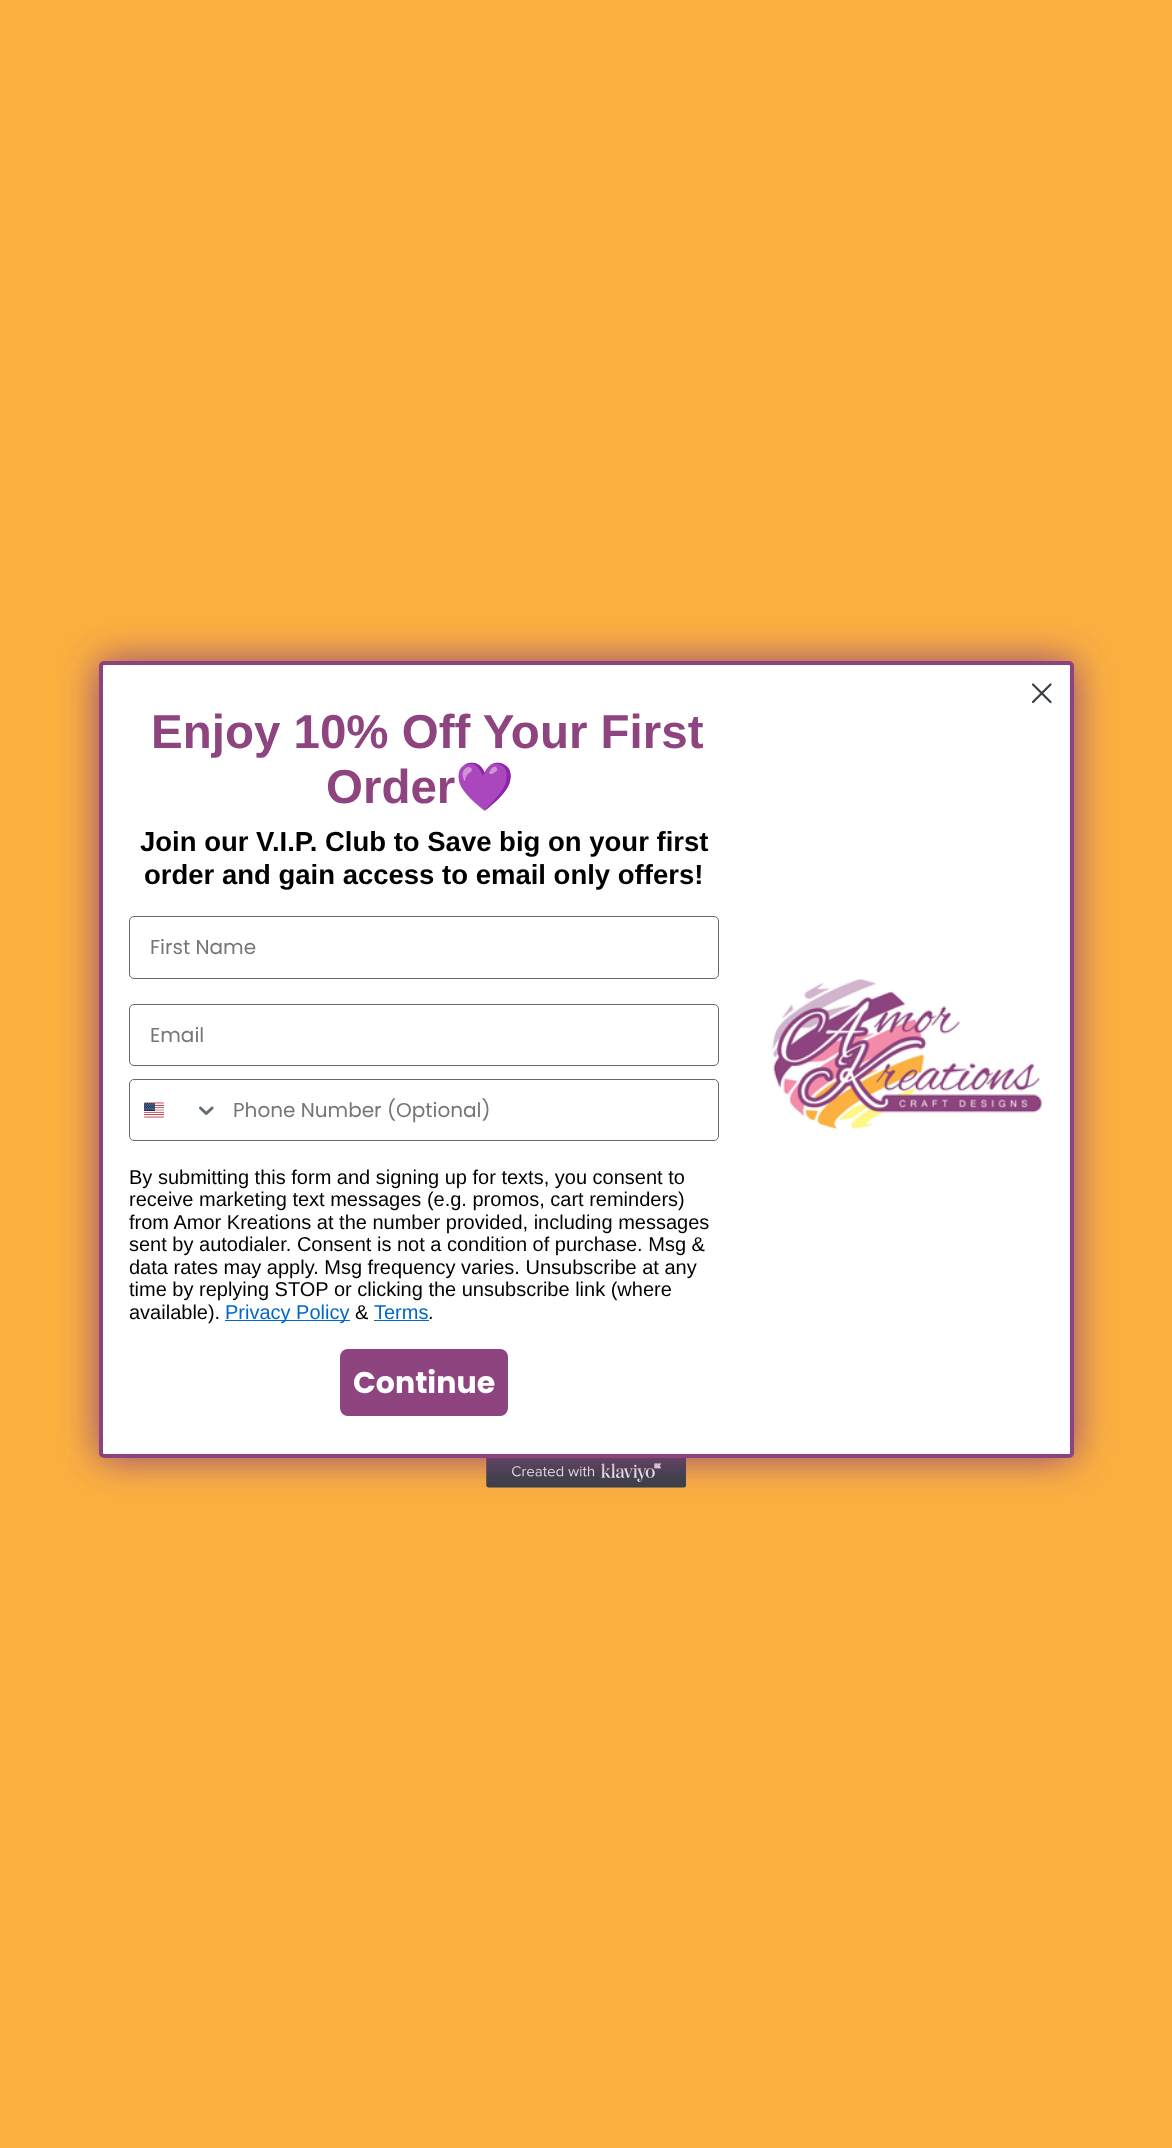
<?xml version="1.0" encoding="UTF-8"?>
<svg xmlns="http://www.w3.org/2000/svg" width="1172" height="2148">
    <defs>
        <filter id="blur1" x="-50%" y="-200%" width="200%" height="500%"><feGaussianBlur stdDeviation="19"/></filter>
    </defs>
    <rect width="100%" height="100%" fill="#FCB040"/>
    <image x="486" y="1458" width="200" height="30" href="img_04.png"/>
    <rect x="99" y="661" width="975" height="797" rx="5" fill="#8E457F" filter="url(#blur1)"/>
    <rect x="101" y="663" width="971" height="793" rx="3" fill="#FFFFFF" stroke="#8D437E" stroke-width="4"/>
    <path d="M 1033 684.5 L 1050.5 702 M 1033 702 L 1050.5 684.5 Z" fill="none" stroke="#373F47" stroke-width="2.2" stroke-linecap="round" stroke-linejoin="round"/>
    <text x="151" y="748" font-family="Liberation Sans" font-size="47.5" font-weight="700" fill="#8E457F">Enjoy 10% Off Your First</text>
    <text x="326" y="803" font-family="Liberation Sans" font-size="47.5" font-weight="700" fill="#8E457F">Order</text>
    <text x="455" y="803" font-family="Noto Color Emoji" font-size="47.5" font-weight="700" fill="#8E457F">💜</text>
    <text x="140" y="851" font-family="Liberation Sans" font-size="27.5" font-weight="700" fill="#000000">Join our V.I.P. Club to Save big on your first</text>
    <text x="144" y="884" font-family="Liberation Sans" font-size="27.5" font-weight="700" fill="#000000">order and gain access to email only offers!</text>
    <rect x="129.5" y="916.5" width="589" height="62" rx="4.5" fill="none" stroke="#606A72"/>
    <text x="150" y="954" font-family="Poppins" font-size="20" fill="#767676">First Name</text>
    <rect x="129.5" y="1004.5" width="589" height="61" rx="4.5" fill="none" stroke="#606A72"/>
    <text x="150" y="1042" font-family="Poppins" font-size="20" fill="#767676">Email</text>
    <rect x="129.5" y="1079.5" width="589" height="61" rx="4.5" fill="none" stroke="#606A72"/>
    <image x="144" y="1102" width="20" height="16" href="img_01.png"/>
    <image x="199" y="1106" width="15" height="9" href="img_02.png"/>
    <text x="233" y="1117" font-family="Poppins" font-size="20" fill="#767676">Phone Number (Optional)</text>
    <text font-family="Liberation Sans" font-size="20" fill="#000000">
        <tspan x="129" y="1184">By submitting this form and signing up for texts, you consent to</tspan>
        <tspan x="129" y="1206">receive marketing text messages (e.g. promos, cart reminders)</tspan>
        <tspan x="129" y="1229">from Amor Kreations at the number provided, including messages</tspan>
        <tspan x="129" y="1251">sent by autodialer. Consent is not a condition of purchase. Msg &amp;</tspan>
        <tspan x="129" y="1274">data rates may apply. Msg frequency varies. Unsubscribe at any</tspan>
        <tspan x="129" y="1296">time by replying STOP or clicking the unsubscribe link (where</tspan>
        <tspan x="129" y="1319">available).</tspan>
    </text>
    <rect x="225" y="1320" width="125" height="1" fill="#0066CC"/>
    <text x="225" y="1319" font-family="Liberation Sans" font-size="20" fill="#0066CC">Privacy Policy</text>
    <text x="355" y="1319" font-family="Liberation Sans" font-size="20" fill="#000000">&amp;</text>
    <text x="374" y="1319" font-family="Liberation Sans" font-size="20" fill="#0066CC">Terms</text>
    <rect x="374" y="1320" width="55" height="1" fill="#0066CC"/>
    <text x="428" y="1319" font-family="Liberation Sans" font-size="20" fill="#000000">.</text>
    <rect x="340" y="1349" width="168" height="67" rx="8" fill="#8E457F"/>
    <text x="353" y="1393" font-family="Poppins" font-size="30" font-weight="700" fill="#FFFFFF">Continue</text>
    <image x="772" y="979" width="270" height="151" href="img_03.png"/>
</svg>
